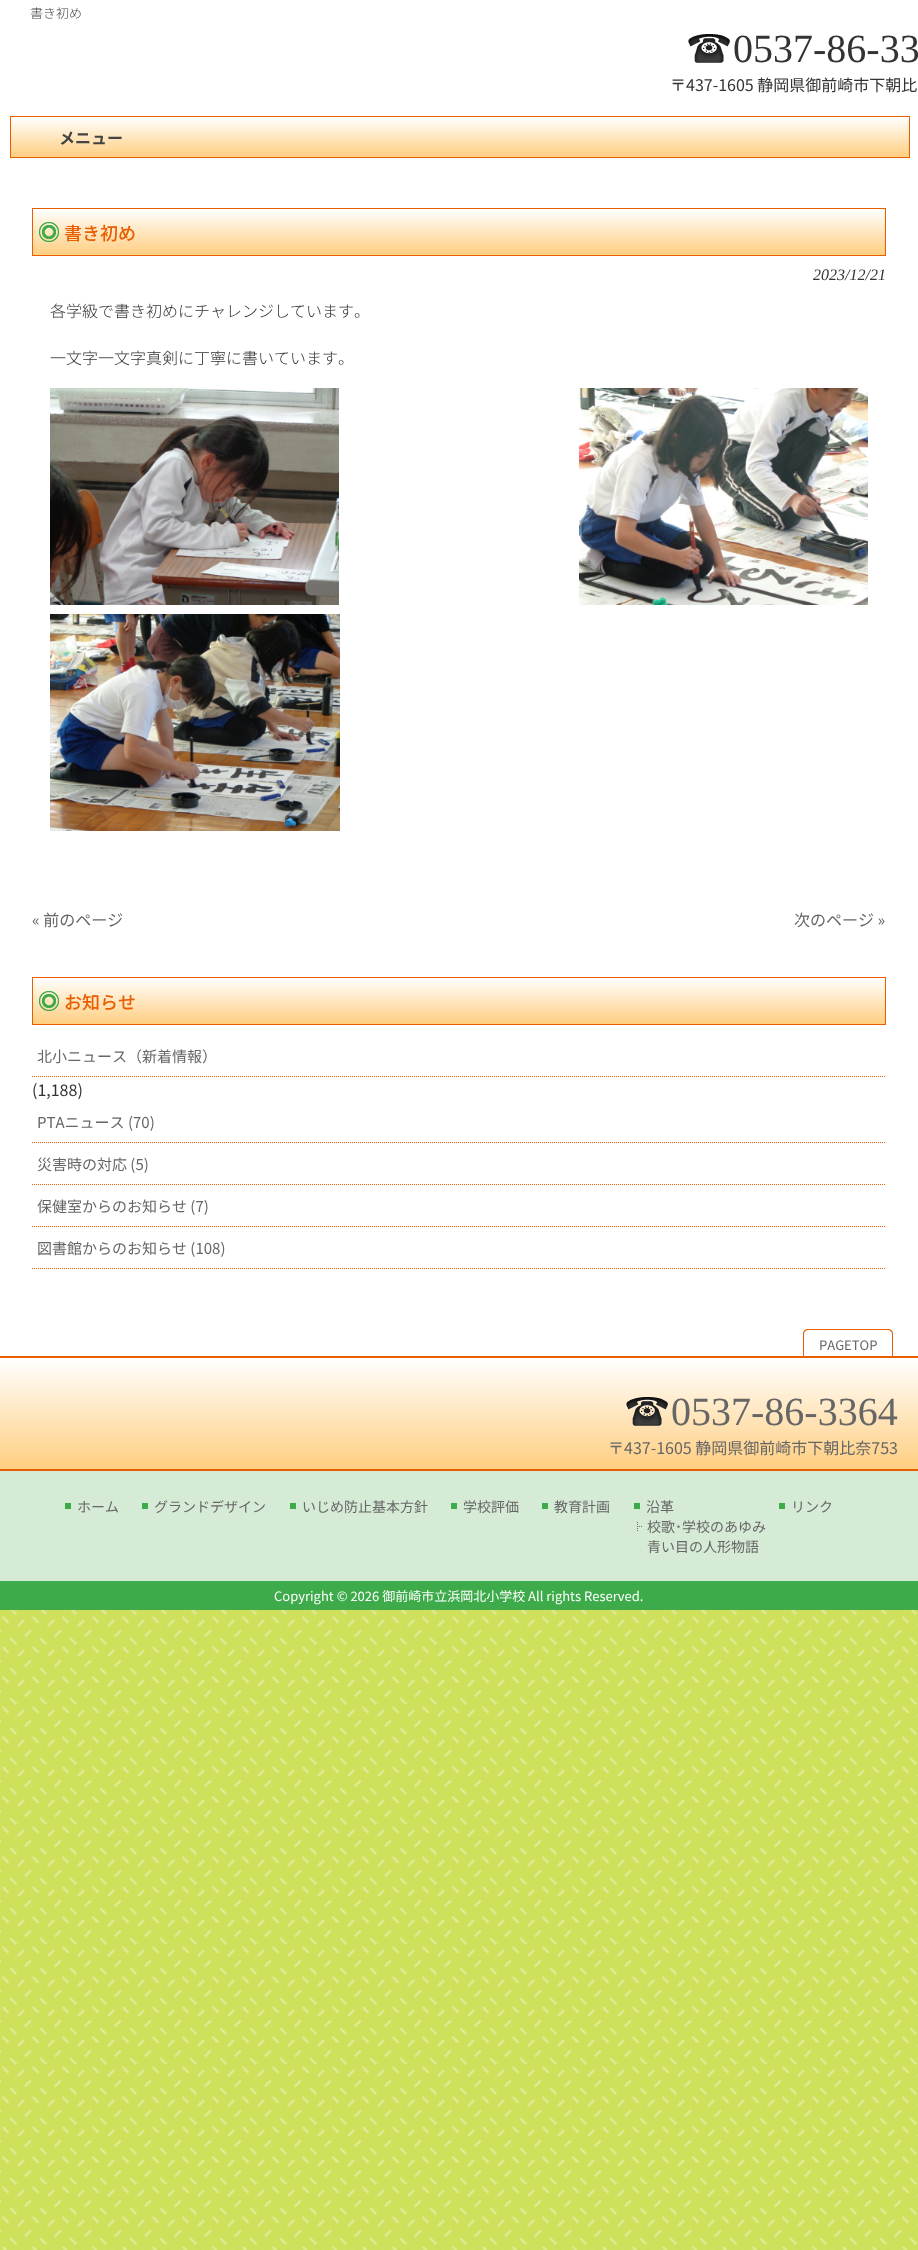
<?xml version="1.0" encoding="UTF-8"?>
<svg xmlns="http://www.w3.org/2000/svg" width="918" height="2250">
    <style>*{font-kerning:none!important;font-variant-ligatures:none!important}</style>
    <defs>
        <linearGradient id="g1" gradientUnits="userSpaceOnUse" x1="460" y1="117" x2="460" y2="157"><stop offset="0" stop-color="#FFFFFF"/><stop offset="1" stop-color="#FFCE80"/></linearGradient>
        <linearGradient id="g2" gradientUnits="userSpaceOnUse" x1="459" y1="209" x2="459" y2="255"><stop offset="0" stop-color="#FFFFFF"/><stop offset="1" stop-color="#FFCE80"/></linearGradient>
        <linearGradient id="g3" gradientUnits="userSpaceOnUse" x1="459" y1="978" x2="459" y2="1024"><stop offset="0" stop-color="#FFFFFF"/><stop offset="1" stop-color="#FFCE80"/></linearGradient>
        <linearGradient id="g4" gradientUnits="userSpaceOnUse" x1="459" y1="1358" x2="459" y2="1469"><stop offset="0" stop-color="#FFFFFF"/><stop offset="1" stop-color="#FFCE80"/></linearGradient>
    </defs>
    <rect width="100%" height="100%" fill="#FFFFFF"/>
    <image x="0" y="1610" width="918" height="640" href="img_01.png"/>
    <text x="30" y="18" font-family="Noto Sans JP" font-size="13" font-weight="300" fill="#444444">書き初め</text>
    <image x="688" y="34" width="42" height="29" href="img_02.png"/>
    <text x="733" y="62" font-family="Liberation Serif" font-size="40" fill="#333333">0537-86-33</text>
    <text x="670" y="91" font-family="Noto Sans JP" font-size="16" fill="#333333">〒437-1605 静岡県御前崎市下朝比</text>
    <rect x="11" y="118" width="898" height="39" fill="url(#g1)"/>
    <rect x="10.5" y="116.5" width="899" height="41" fill="none" stroke="#E85E00"/>
    <text x="59" y="144" font-family="Noto Sans JP" font-size="16" font-weight="700" fill="#444444">メニュー</text>
    <rect x="33" y="210" width="852" height="45" fill="url(#g2)"/>
    <rect x="32.5" y="208.5" width="853" height="47" fill="none" stroke="#E85E00"/>
    <image x="38" y="222" width="21" height="20" href="img_03.png"/>
    <text x="64" y="240" font-family="Noto Sans JP" font-size="18" font-weight="500" fill="#E85E00">書き初め</text>
    <text x="813" y="280" font-family="Liberation Serif" font-size="16" font-style="italic" fill="#333333">2023/12/21</text>
    <text x="50" y="317" font-family="Noto Sans JP" font-size="16" font-weight="300" fill="#333333">各学級で書き初めにチャレンジしています。</text>
    <text x="50" y="364" font-family="Noto Sans JP" font-size="16" font-weight="300" fill="#333333">一文字一文字真剣に丁寧に書いています。</text>
    <image x="50" y="388" width="289" height="217" href="img_04.png"/>
    <image x="579" y="388" width="289" height="217" href="img_05.png"/>
    <image x="50" y="614" width="290" height="217" href="img_06.png"/>
    <text x="32" y="926" font-family="Noto Sans JP" font-size="16" fill="#666666">« 前のページ</text>
    <text x="794" y="926" font-family="Noto Sans JP" font-size="16" fill="#666666">次のページ »</text>
    <rect x="33" y="979" width="852" height="45" fill="url(#g3)"/>
    <rect x="32.5" y="977.5" width="853" height="47" fill="none" stroke="#E85E00"/>
    <image x="38" y="991" width="21" height="20" href="img_03.png"/>
    <text x="64" y="1009" font-family="Noto Sans JP" font-size="18" font-weight="500" fill="#E85E00">お知らせ</text>
    <path d="M 32 1076.5 H 886" fill="none" stroke="#E85E00" stroke-dasharray="1 1"/>
    <text x="37" y="1062" font-family="Noto Sans JP" font-size="15" fill="#666666">北小ニュース（新着情報）</text>
    <text x="32" y="1096" font-family="Noto Sans JP" font-size="16" fill="#333333">(1,188)</text>
    <path d="M 32 1142.5 H 886" fill="none" stroke="#E85E00" stroke-dasharray="1 1"/>
    <text x="37" y="1128" font-family="Noto Sans JP" font-size="15" fill="#666666">PTAニュース (70)</text>
    <path d="M 32 1184.5 H 886" fill="none" stroke="#E85E00" stroke-dasharray="1 1"/>
    <text x="37" y="1170" font-family="Noto Sans JP" font-size="15" fill="#666666">災害時の対応 (5)</text>
    <path d="M 32 1226.5 H 886" fill="none" stroke="#E85E00" stroke-dasharray="1 1"/>
    <text x="37" y="1212" font-family="Noto Sans JP" font-size="15" fill="#666666">保健室からのお知らせ (7)</text>
    <path d="M 32 1268.5 H 886" fill="none" stroke="#E85E00" stroke-dasharray="1 1"/>
    <text x="37" y="1254" font-family="Noto Sans JP" font-size="15" fill="#666666">図書館からのお知らせ (108)</text>
    <path d="M 808 1329 H 888 C 891 1329 893 1331 893 1334 V 1356 H 803 V 1334 C 803 1331 805 1329 808 1329 Z M 808 1330 H 888 C 890 1330 892 1332 892 1334 V 1356 H 804 V 1334 C 804 1332 806 1330 808 1330 Z" fill="#E85E00" fill-rule="evenodd"/>
    <text x="819" y="1350" font-family="Noto Sans JP" font-size="13" fill="#666666">PAGETOP</text>
    <rect x="0" y="1471" width="918" height="110" fill="#D6EBD6"/>
    <rect x="0" y="1360" width="918" height="109" fill="url(#g4)"/>
    <rect x="0" y="1356" width="918" height="2" fill="#E85E00"/>
    <rect x="0" y="1469" width="918" height="2" fill="#E85E00"/>
    <image x="626" y="1397" width="42" height="29" href="img_07.png"/>
    <text x="671" y="1425" font-family="Liberation Serif" font-size="40" fill="#666666">0537-86-3364</text>
    <text x="608" y="1454" font-family="Noto Sans JP" font-size="16" fill="#666666">〒437-1605 静岡県御前崎市下朝比奈753</text>
    <rect x="65" y="1503" width="6" height="6" fill="#3DAB4A"/>
    <text x="77" y="1512" font-family="Noto Sans JP" font-size="14" fill="#666666">ホーム</text>
    <rect x="142" y="1503" width="6" height="6" fill="#3DAB4A"/>
    <text x="154" y="1512" font-family="Noto Sans JP" font-size="14" fill="#666666">グランドデザイン</text>
    <rect x="290" y="1503" width="6" height="6" fill="#3DAB4A"/>
    <text x="302" y="1512" font-family="Noto Sans JP" font-size="14" fill="#666666">いじめ防止基本方針</text>
    <rect x="451" y="1503" width="6" height="6" fill="#3DAB4A"/>
    <text x="463" y="1512" font-family="Noto Sans JP" font-size="14" fill="#666666">学校評価</text>
    <rect x="542" y="1503" width="6" height="6" fill="#3DAB4A"/>
    <text x="554" y="1512" font-family="Noto Sans JP" font-size="14" fill="#666666">教育計画</text>
    <rect x="634" y="1503" width="6" height="6" fill="#3DAB4A"/>
    <text x="646" y="1512" font-family="Noto Sans JP" font-size="14" fill="#666666">沿革</text>
    <image x="637" y="1522" width="5" height="9" href="img_08.png"/>
    <text font-family="Noto Sans JP" font-size="14" fill="#666666">
        <tspan x="647" y="1532">校歌･学校のあゆみ</tspan>
        <tspan x="647" y="1552">青い目の人形物語</tspan>
    </text>
    <rect x="779" y="1503" width="6" height="6" fill="#3DAB4A"/>
    <text x="791" y="1512" font-family="Noto Sans JP" font-size="14" fill="#666666">リンク</text>
    <rect x="0" y="1581" width="918" height="29" fill="#3DAB4A"/>
    <text x="274" y="1601" font-family="Noto Sans JP" font-size="13" fill="#FFFFFF">Copyright © 2026 御前崎市立浜岡北小学校 All rights Reserved.</text>
</svg>
